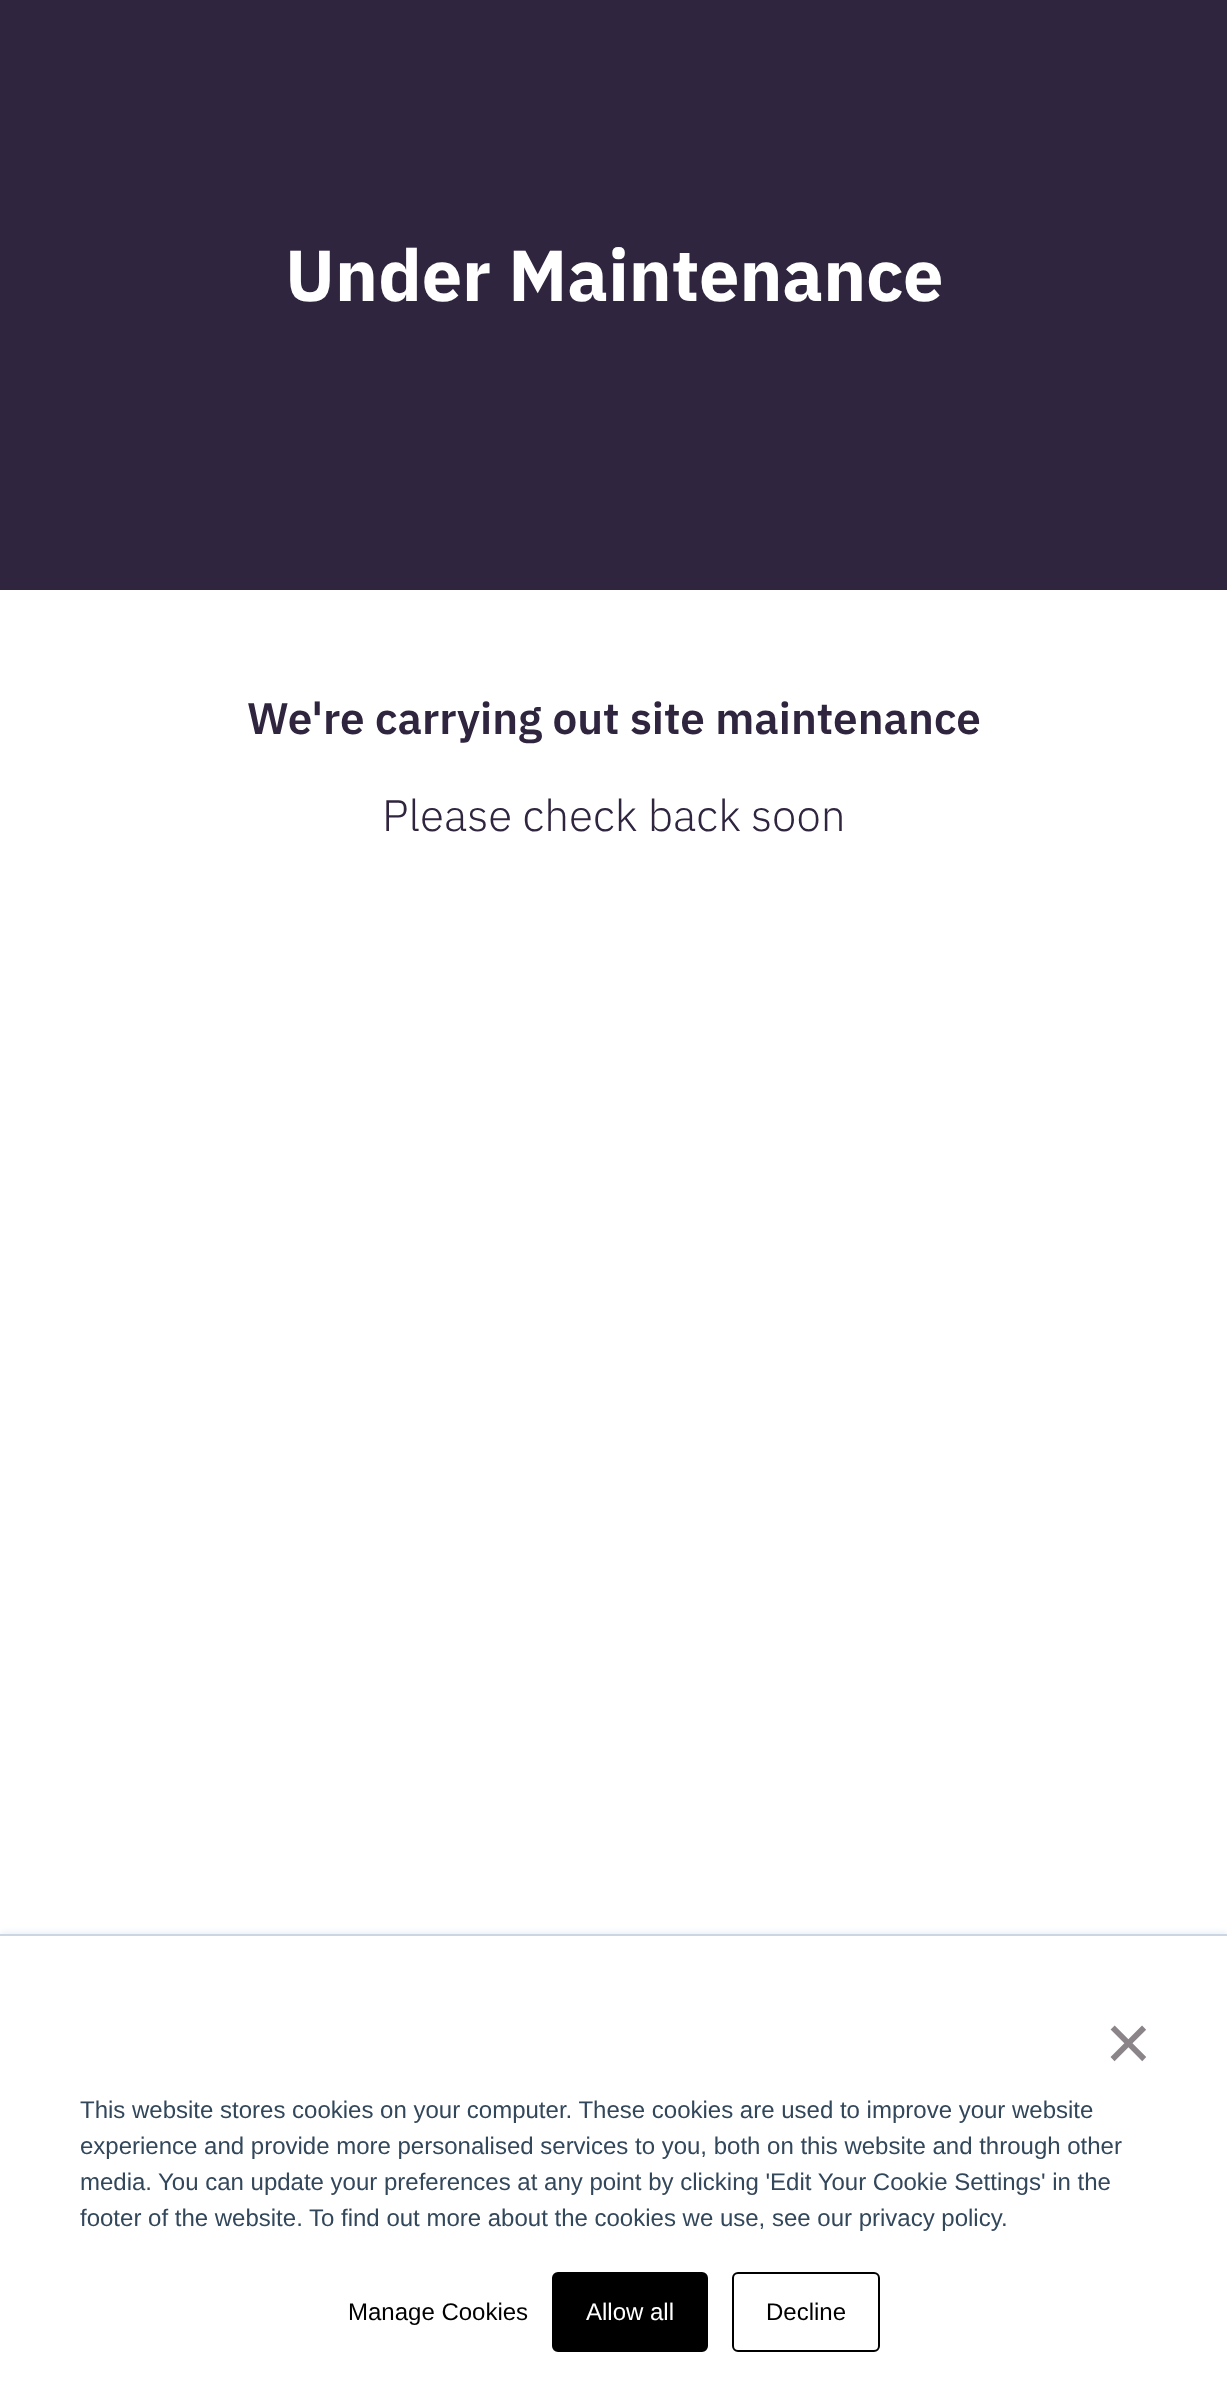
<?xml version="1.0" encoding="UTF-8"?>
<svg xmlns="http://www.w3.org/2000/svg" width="1227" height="2403">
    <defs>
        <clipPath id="clip1"><rect x="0" y="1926" width="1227" height="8"/></clipPath>
        <filter id="blur1" x="-50%" y="-200%" width="200%" height="500%"><feGaussianBlur stdDeviation="3"/></filter>
    </defs>
    <rect width="100%" height="100%" fill="#FFFFFF"/>
    <rect x="0" y="0" width="1227" height="590" fill="#30253F"/>
    <text x="285" y="301" font-family="IBM Plex Sans" font-size="72" font-weight="700" fill="#FFFFFF">Under Maintenance</text>
    <text x="247" y="734" font-family="IBM Plex Sans" font-size="44" font-weight="600" fill="#30253F">We're carrying out site maintenance</text>
    <text x="382" y="831" font-family="IBM Plex Sans" font-size="44" font-weight="300" fill="#30253F">Please check back soon</text>
    <g clip-path="url(#clip1)">
        <rect x="0" y="1932" width="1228" height="470" fill="#EAF0F6" filter="url(#blur1)"/>
    </g>
    <rect x="0" y="1934" width="1227" height="2" fill="#CBD6E2"/>
    <text x="1105" y="2070" font-family="Liberation Sans" font-size="80" fill="#8B8589">×</text>
    <text font-family="Liberation Sans" font-size="24" fill="#33475B">
        <tspan x="80" y="2118">This website stores cookies on your computer. These cookies are used to improve your website</tspan>
        <tspan x="80" y="2154">experience and provide more personalised services to you, both on this website and through other</tspan>
        <tspan x="80" y="2190">media.</tspan>
    </text>
    <text x="158" y="2190" font-family="Liberation Sans" font-size="24" fill="#33475B">You can update your preferences at any point by clicking 'Edit Your Cookie Settings' in the</text>
    <text x="80" y="2226" font-family="Liberation Sans" font-size="24" fill="#33475B">footer of the website.</text>
    <text x="309" y="2226" font-family="Liberation Sans" font-size="24" fill="#33475B">To find out more about the cookies we use, see our privacy policy.</text>
    <text x="348" y="2320" font-family="Liberation Sans" font-size="24" fill="#000000">Manage Cookies</text>
    <rect x="553" y="2273" width="154" height="78" rx="5" fill="#000000" stroke="#000000" stroke-width="2"/>
    <text x="586" y="2320" font-family="Liberation Sans" font-size="24" fill="#FFFFFF">Allow all</text>
    <rect x="733" y="2273" width="146" height="78" rx="5" fill="none" stroke="#000000" stroke-width="2"/>
    <text x="766" y="2320" font-family="Liberation Sans" font-size="24" fill="#000000">Decline</text>
</svg>
